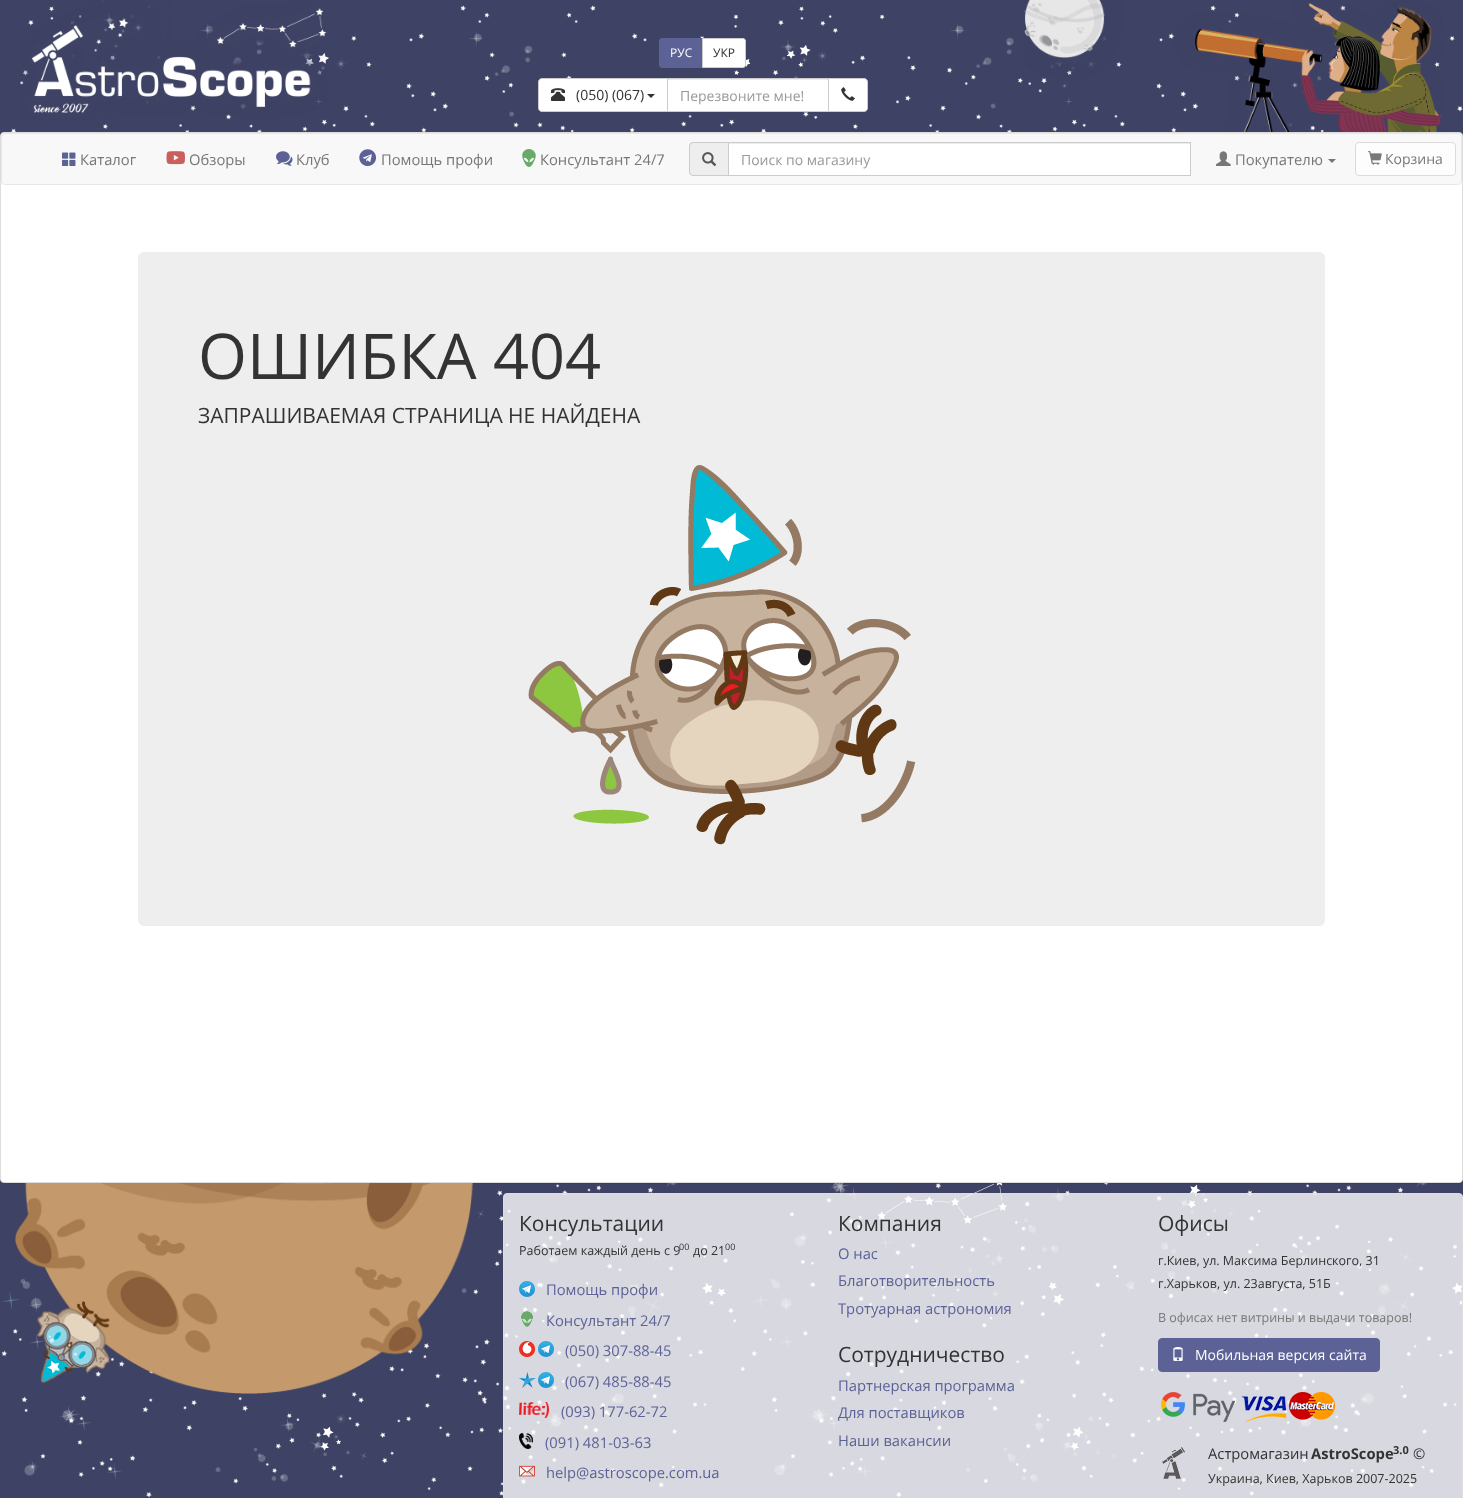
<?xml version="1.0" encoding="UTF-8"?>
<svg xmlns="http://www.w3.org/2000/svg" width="1463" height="1498">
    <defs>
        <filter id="blur1" x="-50%" y="-200%" width="200%" height="500%"><feGaussianBlur stdDeviation="0.5"/></filter>
    </defs>
    <rect width="100%" height="100%" fill="#3E4264"/>
    <image x="0" y="5" width="1463" height="1493" href="img_01.png"/>
    <image x="21" y="0" width="306" height="120" href="img_02.png"/>
    <path d="M 662 38.5 H 702.5 V 67.5 H 662 C 660.5 67.5 659.5 66.5 659.5 65 V 41 C 659.5 39.5 660.5 38.5 662 38.5 Z" fill="#5C6296" stroke="#5C6296"/>
    <text x="670" y="57" font-family="Open Sans" font-size="12" fill="#FFFFFF">РУС</text>
    <path d="M 702.5 38.5 H 743 C 744.5 38.5 745.5 39.5 745.5 41 V 65 C 745.5 66.5 744.5 67.5 743 67.5 H 702.5 Z" fill="#FFFFFF" stroke="#CCCCCC"/>
    <text x="713" y="57" font-family="Open Sans" font-size="12" fill="#333333">УКР</text>
    <path d="M 542 78.5 H 667.5 V 111.5 H 542 C 540 111.5 538.5 110 538.5 108 V 82 C 538.5 80 540 78.5 542 78.5 Z" fill="#FFFFFF" stroke="#CCCCCC"/>
    <image x="551" y="88" width="14" height="13" href="img_03.png"/>
    <text x="576" y="100" font-family="Open Sans" font-size="14" fill="#333333">(050) (067)</text>
    <path d="M 647 94 H 655 L 651 98 Z" fill="#333333"/>
    <rect x="668" y="80" width="160" height="31" fill="#FFFFFF"/>
    <rect x="668" y="79" width="160" height="1" fill="#ECECEC"/>
    <rect x="667.5" y="78.5" width="161" height="33" fill="none" stroke="#CCCCCC"/>
    <text x="680" y="101" font-family="Open Sans" font-size="14" fill="#999999">Перезвоните мне!</text>
    <path d="M 828.5 78.5 H 864 C 866 78.5 867.5 80 867.5 82 V 108 C 867.5 110 866 111.5 864 111.5 H 828.5 Z" fill="#FFFFFF" stroke="#CCCCCC"/>
    <image x="841" y="87" width="14" height="14" href="img_04.png"/>
    <image x="1024" y="0" width="418" height="132" href="img_05.png"/>
    <rect x="0" y="133" width="1463" height="1051" rx="4" fill="#000000" fill-opacity="0.05" filter="url(#blur1)"/>
    <rect x="0.5" y="132.5" width="1462" height="1050" rx="3.5" fill="#FFFFFF" stroke="#DDDDDD"/>
    <rect x="1.5" y="133.5" width="1460" height="51" rx="3.5" fill="#F8F8F8" stroke="#E7E7E7"/>
    <image x="62" y="152" width="14" height="14" href="img_06.png"/>
    <text x="80" y="165" font-family="Open Sans" font-size="14.75" fill="#777777">Каталог</text>
    <image x="166" y="151" width="19" height="14" href="img_07.png"/>
    <text x="189" y="165" font-family="Open Sans" font-size="14.75" fill="#777777">Обзоры</text>
    <image x="276" y="151" width="17" height="15" href="img_08.png"/>
    <text x="296" y="165" font-family="Open Sans" font-size="14.75" fill="#777777">Клуб</text>
    <image x="359" y="149" width="18" height="18" href="img_09.png"/>
    <text x="381" y="165" font-family="Open Sans" font-size="14.75" fill="#777777">Помощь профи</text>
    <image x="522" y="149" width="14" height="18" href="img_10.png"/>
    <text x="540" y="165" font-family="Open Sans" font-size="14.75" fill="#777777">Консультант 24/7</text>
    <path d="M 693 142 H 728 V 176 H 693 C 691 176 689 174 689 172 V 146 C 689 144 691 142 693 142 Z" fill="#EEEEEE"/>
    <path d="M 693 142 H 728 V 176 H 693 C 691 176 689 174 689 172 V 146 C 689 144 691 142 693 142 Z M 693 143 H 728 V 175 H 693 C 691.5 175 690 173.5 690 172 V 146 C 690 144.5 691.5 143 693 143 Z" fill="#CCCCCC" fill-rule="evenodd"/>
    <image x="702" y="152" width="15" height="14" href="img_11.png"/>
    <rect x="729" y="144" width="461" height="31" fill="#FFFFFF"/>
    <rect x="729" y="143" width="461" height="1" fill="#ECECEC"/>
    <rect x="728.5" y="142.5" width="462" height="33" fill="none" stroke="#CCCCCC"/>
    <text x="741" y="165" font-family="Open Sans" font-size="14" fill="#999999">Поиск по магазину</text>
    <image x="1216" y="151" width="15" height="15" href="img_12.png"/>
    <text x="1235" y="165" font-family="Open Sans" font-size="14.75" fill="#777777">Покупателю</text>
    <path d="M 1328 159 H 1336 L 1332 163 Z" fill="#777777"/>
    <rect x="1355.5" y="142.5" width="100" height="33" rx="3.5" fill="#FDFDFD" stroke="#DBDBDB"/>
    <image x="1368" y="151" width="14" height="14" href="img_13.png"/>
    <text x="1385" y="164" font-family="Open Sans" font-size="14" fill="#777777">Корзина</text>
    <rect x="138" y="252" width="1187" height="674" rx="6" fill="#EEEEEE"/>
    <text x="198" y="379" font-family="Open Sans" font-size="63" fill="#333333">ОШИБКА 404</text>
    <text x="198" y="423" font-family="Open Sans" font-size="21" fill="#333333">ЗАПРАШИВАЕМАЯ СТРАНИЦА НЕ НАЙДЕНА</text>
    <image x="528" y="465" width="388" height="380" href="img_14.png"/>
    <image x="15" y="1183" width="458" height="211" href="img_15.png"/>
    <rect x="503.5" y="1193.5" width="959" height="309" rx="3.5" fill="#FFFFFF" fill-opacity="0.8" stroke="#DDDDDD"/>
    <text x="519" y="1231" font-family="Open Sans" font-size="21" fill="#333333">Консультации</text>
    <text x="519" y="1255" font-family="Open Sans" font-size="12.5" fill="#333333">Работаем каждый день с 9</text>
    <text x="679" y="1250" font-family="Open Sans" font-size="9" fill="#333333">00</text>
    <text x="693" y="1255" font-family="Open Sans" font-size="12.5" fill="#333333">до 21</text>
    <text x="725" y="1250" font-family="Open Sans" font-size="9" fill="#333333">00</text>
    <image x="519" y="1281" width="16" height="16" href="img_16.png"/>
    <text x="546" y="1295" font-family="Open Sans" font-size="14.75" fill="#5C6296">Помощь профи</text>
    <image x="521" y="1311" width="13" height="16" href="img_17.png"/>
    <text x="546" y="1326" font-family="Open Sans" font-size="14.75" fill="#5C6296">Консультант 24/7</text>
    <image x="519" y="1341" width="35" height="16" href="img_18.png"/>
    <text x="565" y="1356" font-family="Open Sans" font-size="14.75" fill="#5C6296">(050) 307-88-45</text>
    <image x="519" y="1372" width="35" height="16" href="img_19.png"/>
    <text x="565" y="1387" font-family="Open Sans" font-size="14.75" fill="#5C6296">(067) 485-88-45</text>
    <image x="519" y="1402" width="30" height="16" href="img_20.png"/>
    <text x="561" y="1417" font-family="Open Sans" font-size="14.75" fill="#5C6296">(093) 177-62-72</text>
    <image x="519" y="1433" width="14" height="16" href="img_21.png"/>
    <text x="545" y="1448" font-family="Open Sans" font-size="14.75" fill="#5C6296">(091) 481-03-63</text>
    <image x="519" y="1465" width="16" height="12" href="img_22.png"/>
    <text x="546" y="1478" font-family="Open Sans" font-size="14.75" fill="#5C6296">help@astroscope.com.ua</text>
    <text x="838" y="1231" font-family="Open Sans" font-size="21" fill="#333333">Компания</text>
    <text font-family="Open Sans" font-size="14.75" fill="#5C6296">
        <tspan x="838" y="1259">О нас</tspan>
        <tspan x="838" y="1286">Благотворительность</tspan>
        <tspan x="838" y="1314">Тротуарная астрономия</tspan>
    </text>
    <text x="838" y="1362" font-family="Open Sans" font-size="21" fill="#333333">Сотрудничество</text>
    <text font-family="Open Sans" font-size="14.75" fill="#5C6296">
        <tspan x="838" y="1391">Партнерская программа</tspan>
        <tspan x="838" y="1418">Для поставщиков</tspan>
        <tspan x="838" y="1446">Наши вакансии</tspan>
    </text>
    <text x="1158" y="1231" font-family="Open Sans" font-size="21" fill="#333333">Офисы</text>
    <text font-family="Open Sans" font-size="12.5" fill="#333333">
        <tspan x="1158" y="1265">г.Киев, ул. Максима Берлинского, 31</tspan>
        <tspan x="1158" y="1288">г.Харьков, ул. 23августа, 51Б</tspan>
    </text>
    <text x="1158" y="1322" font-family="Open Sans" font-size="12.5" fill="#777777">В офисах нет витрины и выдачи товаров!</text>
    <rect x="1158.5" y="1338.5" width="221" height="33" rx="3.5" fill="#5C6296" stroke="#5C6296"/>
    <image x="1173" y="1347" width="10" height="14" href="img_23.png"/>
    <text x="1195" y="1360" font-family="Open Sans" font-size="14" fill="#FFFFFF">Мобильная версия сайта</text>
    <image x="1161" y="1392" width="174" height="30" href="img_24.png"/>
    <image x="1162" y="1447" width="23" height="32" href="img_25.png"/>
    <text x="1208" y="1459" font-family="Open Sans" font-size="14.75" fill="#333333">Астромагазин</text>
    <text x="1311" y="1459" font-family="Open Sans" font-size="14.75" font-weight="700" fill="#333333">AstroScope</text>
    <text x="1393" y="1454" font-family="Open Sans" font-size="11" font-weight="700" fill="#333333">3.0</text>
    <text x="1413" y="1459" font-family="Open Sans" font-size="14.75" fill="#333333">©</text>
    <text x="1208" y="1483" font-family="Open Sans" font-size="12.5" fill="#333333">Украина, Киев, Харьков 2007-2025</text>
</svg>
